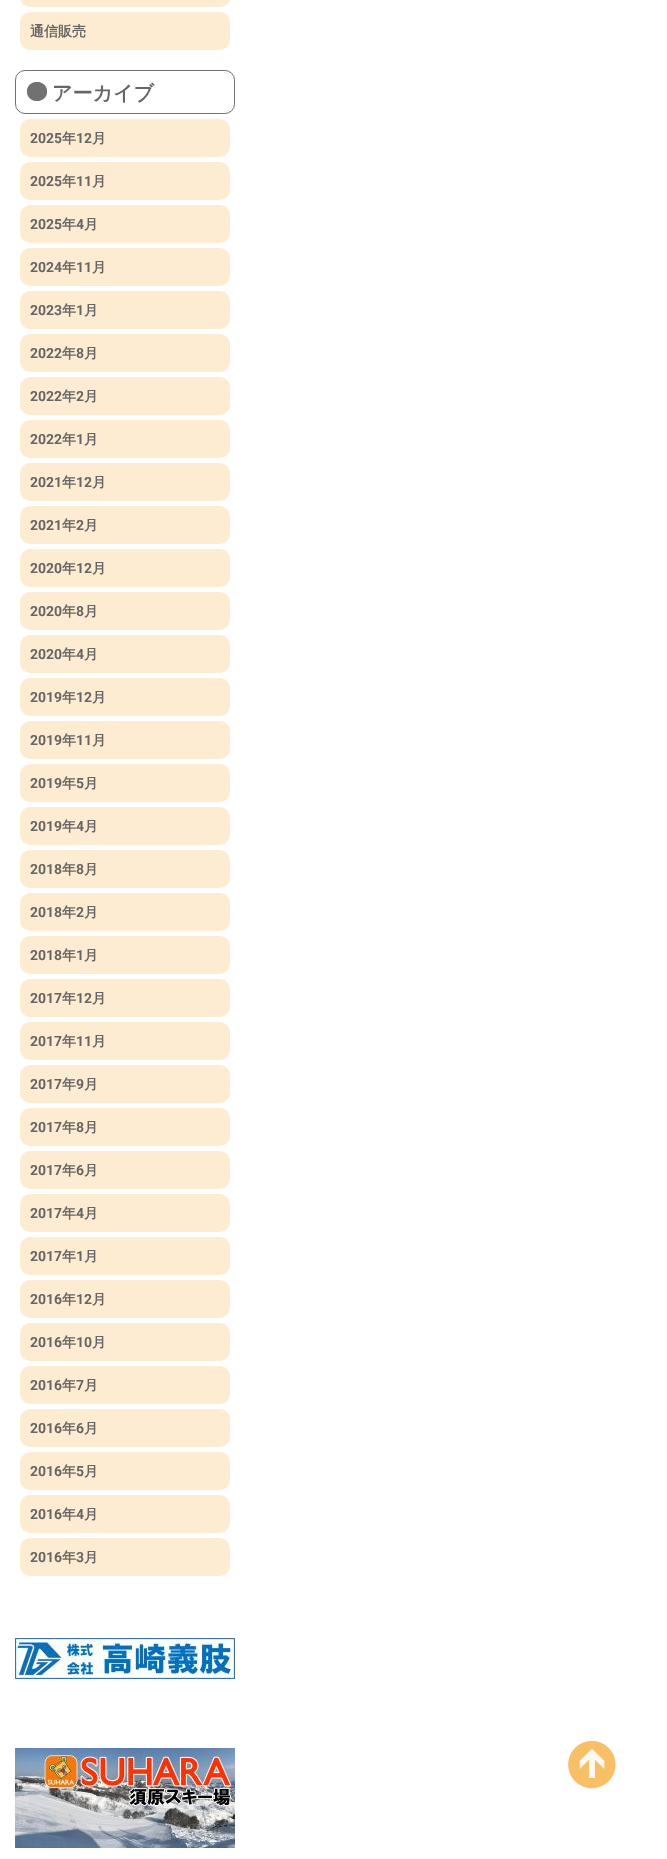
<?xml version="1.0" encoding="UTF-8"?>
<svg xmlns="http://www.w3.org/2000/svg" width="667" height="1859">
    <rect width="100%" height="100%" fill="#FFFFFF"/>
    <rect x="20" y="-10" width="210" height="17" rx="10" fill="#FEECD2"/>
    <rect x="20" y="12" width="210" height="38" rx="10" fill="#FEECD2"/>
    <text x="30" y="36" font-family="WenQuanYi Zen Hei" font-size="14" font-weight="700" fill="#666666">通信販売</text>
    <image x="27" y="82" width="20" height="19" href="img_01.png"/>
    <rect x="15.5" y="70.5" width="219" height="43" rx="9.5" fill="none" stroke="#727272"/>
    <text x="52" y="100" font-family="WenQuanYi Zen Hei" font-size="20" font-weight="700" fill="#666666">アーカイブ</text>
    <rect x="20" y="119" width="210" height="38" rx="10" fill="#FEECD2"/>
    <text x="30" y="143" font-family="Roboto" font-size="14" font-weight="700" fill="#666666">2025</text>
    <text x="62" y="143" font-family="WenQuanYi Zen Hei" font-size="14" font-weight="700" fill="#666666">年</text>
    <text x="76" y="143" font-family="Roboto" font-size="14" font-weight="700" fill="#666666">12</text>
    <text x="92" y="143" font-family="WenQuanYi Zen Hei" font-size="14" font-weight="700" fill="#666666">月</text>
    <rect x="20" y="162" width="210" height="38" rx="10" fill="#FEECD2"/>
    <text x="30" y="186" font-family="Roboto" font-size="14" font-weight="700" fill="#666666">2025</text>
    <text x="62" y="186" font-family="WenQuanYi Zen Hei" font-size="14" font-weight="700" fill="#666666">年</text>
    <text x="76" y="186" font-family="Roboto" font-size="14" font-weight="700" fill="#666666">11</text>
    <text x="92" y="186" font-family="WenQuanYi Zen Hei" font-size="14" font-weight="700" fill="#666666">月</text>
    <rect x="20" y="205" width="210" height="38" rx="10" fill="#FEECD2"/>
    <text x="30" y="229" font-family="Roboto" font-size="14" font-weight="700" fill="#666666">2025</text>
    <text x="62" y="229" font-family="WenQuanYi Zen Hei" font-size="14" font-weight="700" fill="#666666">年</text>
    <text x="76" y="229" font-family="Roboto" font-size="14" font-weight="700" fill="#666666">4</text>
    <text x="84" y="229" font-family="WenQuanYi Zen Hei" font-size="14" font-weight="700" fill="#666666">月</text>
    <rect x="20" y="248" width="210" height="38" rx="10" fill="#FEECD2"/>
    <text x="30" y="272" font-family="Roboto" font-size="14" font-weight="700" fill="#666666">2024</text>
    <text x="62" y="272" font-family="WenQuanYi Zen Hei" font-size="14" font-weight="700" fill="#666666">年</text>
    <text x="76" y="272" font-family="Roboto" font-size="14" font-weight="700" fill="#666666">11</text>
    <text x="92" y="272" font-family="WenQuanYi Zen Hei" font-size="14" font-weight="700" fill="#666666">月</text>
    <rect x="20" y="291" width="210" height="38" rx="10" fill="#FEECD2"/>
    <text x="30" y="315" font-family="Roboto" font-size="14" font-weight="700" fill="#666666">2023</text>
    <text x="62" y="315" font-family="WenQuanYi Zen Hei" font-size="14" font-weight="700" fill="#666666">年</text>
    <text x="76" y="315" font-family="Roboto" font-size="14" font-weight="700" fill="#666666">1</text>
    <text x="84" y="315" font-family="WenQuanYi Zen Hei" font-size="14" font-weight="700" fill="#666666">月</text>
    <rect x="20" y="334" width="210" height="38" rx="10" fill="#FEECD2"/>
    <text x="30" y="358" font-family="Roboto" font-size="14" font-weight="700" fill="#666666">2022</text>
    <text x="62" y="358" font-family="WenQuanYi Zen Hei" font-size="14" font-weight="700" fill="#666666">年</text>
    <text x="76" y="358" font-family="Roboto" font-size="14" font-weight="700" fill="#666666">8</text>
    <text x="84" y="358" font-family="WenQuanYi Zen Hei" font-size="14" font-weight="700" fill="#666666">月</text>
    <rect x="20" y="377" width="210" height="38" rx="10" fill="#FEECD2"/>
    <text x="30" y="401" font-family="Roboto" font-size="14" font-weight="700" fill="#666666">2022</text>
    <text x="62" y="401" font-family="WenQuanYi Zen Hei" font-size="14" font-weight="700" fill="#666666">年</text>
    <text x="76" y="401" font-family="Roboto" font-size="14" font-weight="700" fill="#666666">2</text>
    <text x="84" y="401" font-family="WenQuanYi Zen Hei" font-size="14" font-weight="700" fill="#666666">月</text>
    <rect x="20" y="420" width="210" height="38" rx="10" fill="#FEECD2"/>
    <text x="30" y="444" font-family="Roboto" font-size="14" font-weight="700" fill="#666666">2022</text>
    <text x="62" y="444" font-family="WenQuanYi Zen Hei" font-size="14" font-weight="700" fill="#666666">年</text>
    <text x="76" y="444" font-family="Roboto" font-size="14" font-weight="700" fill="#666666">1</text>
    <text x="84" y="444" font-family="WenQuanYi Zen Hei" font-size="14" font-weight="700" fill="#666666">月</text>
    <rect x="20" y="463" width="210" height="38" rx="10" fill="#FEECD2"/>
    <text x="30" y="487" font-family="Roboto" font-size="14" font-weight="700" fill="#666666">2021</text>
    <text x="62" y="487" font-family="WenQuanYi Zen Hei" font-size="14" font-weight="700" fill="#666666">年</text>
    <text x="76" y="487" font-family="Roboto" font-size="14" font-weight="700" fill="#666666">12</text>
    <text x="92" y="487" font-family="WenQuanYi Zen Hei" font-size="14" font-weight="700" fill="#666666">月</text>
    <rect x="20" y="506" width="210" height="38" rx="10" fill="#FEECD2"/>
    <text x="30" y="530" font-family="Roboto" font-size="14" font-weight="700" fill="#666666">2021</text>
    <text x="62" y="530" font-family="WenQuanYi Zen Hei" font-size="14" font-weight="700" fill="#666666">年</text>
    <text x="76" y="530" font-family="Roboto" font-size="14" font-weight="700" fill="#666666">2</text>
    <text x="84" y="530" font-family="WenQuanYi Zen Hei" font-size="14" font-weight="700" fill="#666666">月</text>
    <rect x="20" y="549" width="210" height="38" rx="10" fill="#FEECD2"/>
    <text x="30" y="573" font-family="Roboto" font-size="14" font-weight="700" fill="#666666">2020</text>
    <text x="62" y="573" font-family="WenQuanYi Zen Hei" font-size="14" font-weight="700" fill="#666666">年</text>
    <text x="76" y="573" font-family="Roboto" font-size="14" font-weight="700" fill="#666666">12</text>
    <text x="92" y="573" font-family="WenQuanYi Zen Hei" font-size="14" font-weight="700" fill="#666666">月</text>
    <rect x="20" y="592" width="210" height="38" rx="10" fill="#FEECD2"/>
    <text x="30" y="616" font-family="Roboto" font-size="14" font-weight="700" fill="#666666">2020</text>
    <text x="62" y="616" font-family="WenQuanYi Zen Hei" font-size="14" font-weight="700" fill="#666666">年</text>
    <text x="76" y="616" font-family="Roboto" font-size="14" font-weight="700" fill="#666666">8</text>
    <text x="84" y="616" font-family="WenQuanYi Zen Hei" font-size="14" font-weight="700" fill="#666666">月</text>
    <rect x="20" y="635" width="210" height="38" rx="10" fill="#FEECD2"/>
    <text x="30" y="659" font-family="Roboto" font-size="14" font-weight="700" fill="#666666">2020</text>
    <text x="62" y="659" font-family="WenQuanYi Zen Hei" font-size="14" font-weight="700" fill="#666666">年</text>
    <text x="76" y="659" font-family="Roboto" font-size="14" font-weight="700" fill="#666666">4</text>
    <text x="84" y="659" font-family="WenQuanYi Zen Hei" font-size="14" font-weight="700" fill="#666666">月</text>
    <rect x="20" y="678" width="210" height="38" rx="10" fill="#FEECD2"/>
    <text x="30" y="702" font-family="Roboto" font-size="14" font-weight="700" fill="#666666">2019</text>
    <text x="62" y="702" font-family="WenQuanYi Zen Hei" font-size="14" font-weight="700" fill="#666666">年</text>
    <text x="76" y="702" font-family="Roboto" font-size="14" font-weight="700" fill="#666666">12</text>
    <text x="92" y="702" font-family="WenQuanYi Zen Hei" font-size="14" font-weight="700" fill="#666666">月</text>
    <rect x="20" y="721" width="210" height="38" rx="10" fill="#FEECD2"/>
    <text x="30" y="745" font-family="Roboto" font-size="14" font-weight="700" fill="#666666">2019</text>
    <text x="62" y="745" font-family="WenQuanYi Zen Hei" font-size="14" font-weight="700" fill="#666666">年</text>
    <text x="76" y="745" font-family="Roboto" font-size="14" font-weight="700" fill="#666666">11</text>
    <text x="92" y="745" font-family="WenQuanYi Zen Hei" font-size="14" font-weight="700" fill="#666666">月</text>
    <rect x="20" y="764" width="210" height="38" rx="10" fill="#FEECD2"/>
    <text x="30" y="788" font-family="Roboto" font-size="14" font-weight="700" fill="#666666">2019</text>
    <text x="62" y="788" font-family="WenQuanYi Zen Hei" font-size="14" font-weight="700" fill="#666666">年</text>
    <text x="76" y="788" font-family="Roboto" font-size="14" font-weight="700" fill="#666666">5</text>
    <text x="84" y="788" font-family="WenQuanYi Zen Hei" font-size="14" font-weight="700" fill="#666666">月</text>
    <rect x="20" y="807" width="210" height="38" rx="10" fill="#FEECD2"/>
    <text x="30" y="831" font-family="Roboto" font-size="14" font-weight="700" fill="#666666">2019</text>
    <text x="62" y="831" font-family="WenQuanYi Zen Hei" font-size="14" font-weight="700" fill="#666666">年</text>
    <text x="76" y="831" font-family="Roboto" font-size="14" font-weight="700" fill="#666666">4</text>
    <text x="84" y="831" font-family="WenQuanYi Zen Hei" font-size="14" font-weight="700" fill="#666666">月</text>
    <rect x="20" y="850" width="210" height="38" rx="10" fill="#FEECD2"/>
    <text x="30" y="874" font-family="Roboto" font-size="14" font-weight="700" fill="#666666">2018</text>
    <text x="62" y="874" font-family="WenQuanYi Zen Hei" font-size="14" font-weight="700" fill="#666666">年</text>
    <text x="76" y="874" font-family="Roboto" font-size="14" font-weight="700" fill="#666666">8</text>
    <text x="84" y="874" font-family="WenQuanYi Zen Hei" font-size="14" font-weight="700" fill="#666666">月</text>
    <rect x="20" y="893" width="210" height="38" rx="10" fill="#FEECD2"/>
    <text x="30" y="917" font-family="Roboto" font-size="14" font-weight="700" fill="#666666">2018</text>
    <text x="62" y="917" font-family="WenQuanYi Zen Hei" font-size="14" font-weight="700" fill="#666666">年</text>
    <text x="76" y="917" font-family="Roboto" font-size="14" font-weight="700" fill="#666666">2</text>
    <text x="84" y="917" font-family="WenQuanYi Zen Hei" font-size="14" font-weight="700" fill="#666666">月</text>
    <rect x="20" y="936" width="210" height="38" rx="10" fill="#FEECD2"/>
    <text x="30" y="960" font-family="Roboto" font-size="14" font-weight="700" fill="#666666">2018</text>
    <text x="62" y="960" font-family="WenQuanYi Zen Hei" font-size="14" font-weight="700" fill="#666666">年</text>
    <text x="76" y="960" font-family="Roboto" font-size="14" font-weight="700" fill="#666666">1</text>
    <text x="84" y="960" font-family="WenQuanYi Zen Hei" font-size="14" font-weight="700" fill="#666666">月</text>
    <rect x="20" y="979" width="210" height="38" rx="10" fill="#FEECD2"/>
    <text x="30" y="1003" font-family="Roboto" font-size="14" font-weight="700" fill="#666666">2017</text>
    <text x="62" y="1003" font-family="WenQuanYi Zen Hei" font-size="14" font-weight="700" fill="#666666">年</text>
    <text x="76" y="1003" font-family="Roboto" font-size="14" font-weight="700" fill="#666666">12</text>
    <text x="92" y="1003" font-family="WenQuanYi Zen Hei" font-size="14" font-weight="700" fill="#666666">月</text>
    <rect x="20" y="1022" width="210" height="38" rx="10" fill="#FEECD2"/>
    <text x="30" y="1046" font-family="Roboto" font-size="14" font-weight="700" fill="#666666">2017</text>
    <text x="62" y="1046" font-family="WenQuanYi Zen Hei" font-size="14" font-weight="700" fill="#666666">年</text>
    <text x="76" y="1046" font-family="Roboto" font-size="14" font-weight="700" fill="#666666">11</text>
    <text x="92" y="1046" font-family="WenQuanYi Zen Hei" font-size="14" font-weight="700" fill="#666666">月</text>
    <rect x="20" y="1065" width="210" height="38" rx="10" fill="#FEECD2"/>
    <text x="30" y="1089" font-family="Roboto" font-size="14" font-weight="700" fill="#666666">2017</text>
    <text x="62" y="1089" font-family="WenQuanYi Zen Hei" font-size="14" font-weight="700" fill="#666666">年</text>
    <text x="76" y="1089" font-family="Roboto" font-size="14" font-weight="700" fill="#666666">9</text>
    <text x="84" y="1089" font-family="WenQuanYi Zen Hei" font-size="14" font-weight="700" fill="#666666">月</text>
    <rect x="20" y="1108" width="210" height="38" rx="10" fill="#FEECD2"/>
    <text x="30" y="1132" font-family="Roboto" font-size="14" font-weight="700" fill="#666666">2017</text>
    <text x="62" y="1132" font-family="WenQuanYi Zen Hei" font-size="14" font-weight="700" fill="#666666">年</text>
    <text x="76" y="1132" font-family="Roboto" font-size="14" font-weight="700" fill="#666666">8</text>
    <text x="84" y="1132" font-family="WenQuanYi Zen Hei" font-size="14" font-weight="700" fill="#666666">月</text>
    <rect x="20" y="1151" width="210" height="38" rx="10" fill="#FEECD2"/>
    <text x="30" y="1175" font-family="Roboto" font-size="14" font-weight="700" fill="#666666">2017</text>
    <text x="62" y="1175" font-family="WenQuanYi Zen Hei" font-size="14" font-weight="700" fill="#666666">年</text>
    <text x="76" y="1175" font-family="Roboto" font-size="14" font-weight="700" fill="#666666">6</text>
    <text x="84" y="1175" font-family="WenQuanYi Zen Hei" font-size="14" font-weight="700" fill="#666666">月</text>
    <rect x="20" y="1194" width="210" height="38" rx="10" fill="#FEECD2"/>
    <text x="30" y="1218" font-family="Roboto" font-size="14" font-weight="700" fill="#666666">2017</text>
    <text x="62" y="1218" font-family="WenQuanYi Zen Hei" font-size="14" font-weight="700" fill="#666666">年</text>
    <text x="76" y="1218" font-family="Roboto" font-size="14" font-weight="700" fill="#666666">4</text>
    <text x="84" y="1218" font-family="WenQuanYi Zen Hei" font-size="14" font-weight="700" fill="#666666">月</text>
    <rect x="20" y="1237" width="210" height="38" rx="10" fill="#FEECD2"/>
    <text x="30" y="1261" font-family="Roboto" font-size="14" font-weight="700" fill="#666666">2017</text>
    <text x="62" y="1261" font-family="WenQuanYi Zen Hei" font-size="14" font-weight="700" fill="#666666">年</text>
    <text x="76" y="1261" font-family="Roboto" font-size="14" font-weight="700" fill="#666666">1</text>
    <text x="84" y="1261" font-family="WenQuanYi Zen Hei" font-size="14" font-weight="700" fill="#666666">月</text>
    <rect x="20" y="1280" width="210" height="38" rx="10" fill="#FEECD2"/>
    <text x="30" y="1304" font-family="Roboto" font-size="14" font-weight="700" fill="#666666">2016</text>
    <text x="62" y="1304" font-family="WenQuanYi Zen Hei" font-size="14" font-weight="700" fill="#666666">年</text>
    <text x="76" y="1304" font-family="Roboto" font-size="14" font-weight="700" fill="#666666">12</text>
    <text x="92" y="1304" font-family="WenQuanYi Zen Hei" font-size="14" font-weight="700" fill="#666666">月</text>
    <rect x="20" y="1323" width="210" height="38" rx="10" fill="#FEECD2"/>
    <text x="30" y="1347" font-family="Roboto" font-size="14" font-weight="700" fill="#666666">2016</text>
    <text x="62" y="1347" font-family="WenQuanYi Zen Hei" font-size="14" font-weight="700" fill="#666666">年</text>
    <text x="76" y="1347" font-family="Roboto" font-size="14" font-weight="700" fill="#666666">10</text>
    <text x="92" y="1347" font-family="WenQuanYi Zen Hei" font-size="14" font-weight="700" fill="#666666">月</text>
    <rect x="20" y="1366" width="210" height="38" rx="10" fill="#FEECD2"/>
    <text x="30" y="1390" font-family="Roboto" font-size="14" font-weight="700" fill="#666666">2016</text>
    <text x="62" y="1390" font-family="WenQuanYi Zen Hei" font-size="14" font-weight="700" fill="#666666">年</text>
    <text x="76" y="1390" font-family="Roboto" font-size="14" font-weight="700" fill="#666666">7</text>
    <text x="84" y="1390" font-family="WenQuanYi Zen Hei" font-size="14" font-weight="700" fill="#666666">月</text>
    <rect x="20" y="1409" width="210" height="38" rx="10" fill="#FEECD2"/>
    <text x="30" y="1433" font-family="Roboto" font-size="14" font-weight="700" fill="#666666">2016</text>
    <text x="62" y="1433" font-family="WenQuanYi Zen Hei" font-size="14" font-weight="700" fill="#666666">年</text>
    <text x="76" y="1433" font-family="Roboto" font-size="14" font-weight="700" fill="#666666">6</text>
    <text x="84" y="1433" font-family="WenQuanYi Zen Hei" font-size="14" font-weight="700" fill="#666666">月</text>
    <rect x="20" y="1452" width="210" height="38" rx="10" fill="#FEECD2"/>
    <text x="30" y="1476" font-family="Roboto" font-size="14" font-weight="700" fill="#666666">2016</text>
    <text x="62" y="1476" font-family="WenQuanYi Zen Hei" font-size="14" font-weight="700" fill="#666666">年</text>
    <text x="76" y="1476" font-family="Roboto" font-size="14" font-weight="700" fill="#666666">5</text>
    <text x="84" y="1476" font-family="WenQuanYi Zen Hei" font-size="14" font-weight="700" fill="#666666">月</text>
    <rect x="20" y="1495" width="210" height="38" rx="10" fill="#FEECD2"/>
    <text x="30" y="1519" font-family="Roboto" font-size="14" font-weight="700" fill="#666666">2016</text>
    <text x="62" y="1519" font-family="WenQuanYi Zen Hei" font-size="14" font-weight="700" fill="#666666">年</text>
    <text x="76" y="1519" font-family="Roboto" font-size="14" font-weight="700" fill="#666666">4</text>
    <text x="84" y="1519" font-family="WenQuanYi Zen Hei" font-size="14" font-weight="700" fill="#666666">月</text>
    <rect x="20" y="1538" width="210" height="38" rx="10" fill="#FEECD2"/>
    <text x="30" y="1562" font-family="Roboto" font-size="14" font-weight="700" fill="#666666">2016</text>
    <text x="62" y="1562" font-family="WenQuanYi Zen Hei" font-size="14" font-weight="700" fill="#666666">年</text>
    <text x="76" y="1562" font-family="Roboto" font-size="14" font-weight="700" fill="#666666">3</text>
    <text x="84" y="1562" font-family="WenQuanYi Zen Hei" font-size="14" font-weight="700" fill="#666666">月</text>
    <image x="15" y="1638" width="220" height="41" href="img_02.png"/>
    <image x="15" y="1748" width="220" height="100" href="img_03.png"/>
    <image x="568" y="1740" width="48" height="49" href="img_04.png"/>
</svg>
